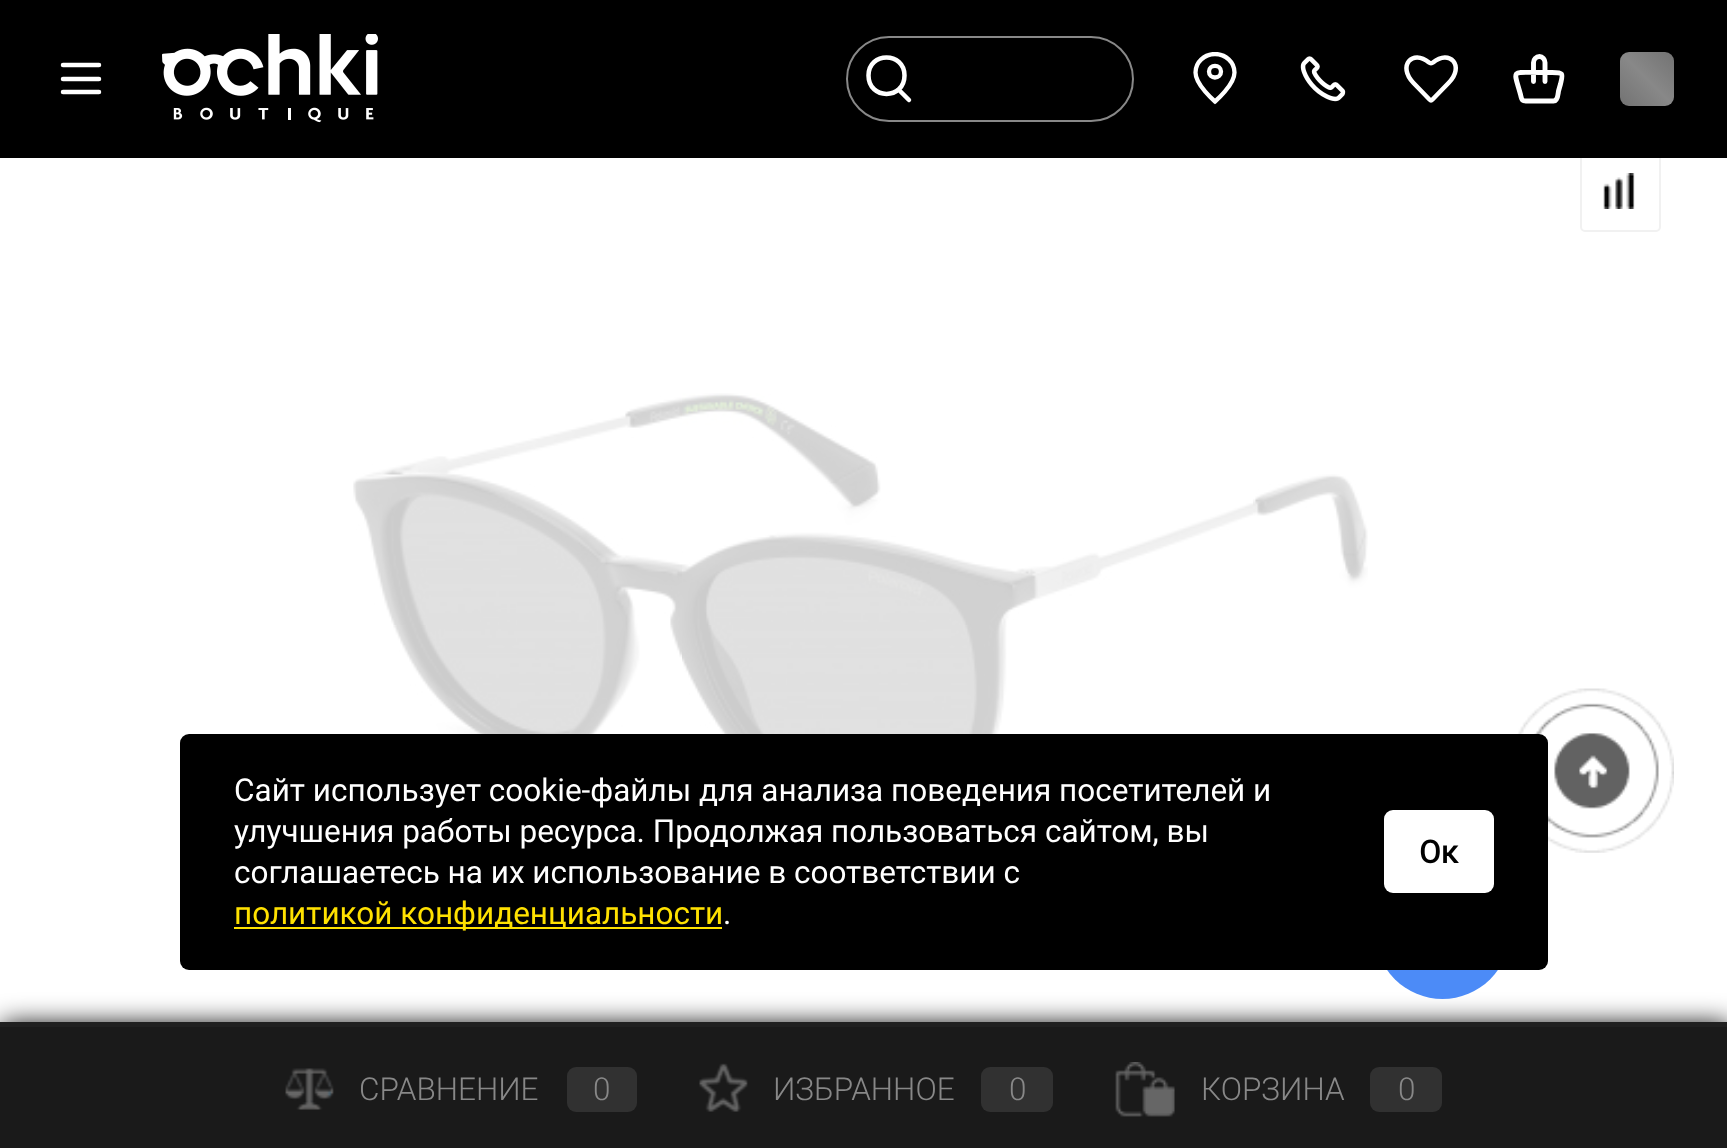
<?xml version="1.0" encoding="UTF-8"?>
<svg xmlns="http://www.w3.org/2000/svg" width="1727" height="1148">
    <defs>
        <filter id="blur1" x="-50%" y="-200%" width="200%" height="500%"><feGaussianBlur stdDeviation="13.5"/></filter>
        <clipPath id="clip1"><rect x="1188" y="52" width="54" height="54"/></clipPath>
        <linearGradient id="g1" gradientUnits="userSpaceOnUse" x1="1620" y1="268" x2="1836" y2="52"><stop offset="0" stop-color="#333333"/><stop offset="0.5" stop-color="#888888"/><stop offset="1" stop-color="#333333"/></linearGradient>
    </defs>
    <rect width="100%" height="100%" fill="#FFFFFF"/>
    <image x="1517" y="688" width="157" height="165" href="img_01.png"/>
    <rect x="2" y="1024" width="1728" height="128" fill="#000000" filter="url(#blur1)"/>
    <circle cx="1442.5" cy="931.5" r="67.5" fill="#4C8BF7"/>
    <rect x="180" y="734" width="1368" height="236" rx="9" fill="#000000"/>
    <text font-family="Roboto" font-size="31.5" fill="#FFFFFF">
        <tspan x="234" y="801">Сайт использует cookie-файлы для анализа поведения посетителей и</tspan>
        <tspan x="234" y="842">улучшения работы ресурса. Продолжая пользоваться сайтом, вы</tspan>
        <tspan x="234" y="883">соглашаетесь на их использование в соответствии с</tspan>
    </text>
    <rect x="234" y="927" width="488" height="2" fill="#FFE100"/>
    <text x="234" y="924" font-family="Roboto" font-size="31.5" fill="#FFE100">политикой конфиденциальности</text>
    <text x="723" y="924" font-family="Roboto" font-size="31.5" fill="#FFFFFF">.</text>
    <rect x="1384" y="810" width="110" height="83" rx="9" fill="#FFFFFF"/>
    <text x="1419" y="863" font-family="Roboto" font-size="31.5" font-weight="700" fill="#000000">Ок</text>
    <rect x="1581" y="152" width="79" height="79" rx="4" fill="none" stroke="#F1F1F1" stroke-width="2"/>
    <rect x="0" y="0" width="1727" height="158" fill="#000000"/>
    <path d="M 99 92 H 63 M 99 79 H 63 M 99 65 H 63" fill="none" stroke="#FFFFFF" stroke-width="4.5" stroke-linecap="round"/>
    <image x="162" y="34" width="216" height="89" href="img_02.png"/>
    <rect x="847" y="37" width="286" height="84" rx="42" fill="none" stroke="#888888" stroke-width="2"/>
    <path d="M 898.5 89.5 L 909 100 M 904.5 75.5 C 904.5 100 868.5 100 868.5 75.5 C 868.5 51.5 904.5 51.5 904.5 75.5 Z" fill="none" stroke="#FFFFFF" stroke-width="4.5" stroke-linecap="round" stroke-linejoin="round"/>
    <g clip-path="url(#clip1)">
        <path d="M 1215 101.5 C 1215 101.5 1234.5 85 1234.5 72.5 C 1234.5 62 1225.5 54 1215 54 C 1204.5 54 1195.5 62 1195.5 72.5 C 1195.5 85 1215 101.5 1215 101.5 Z" fill="none" stroke="#FFFFFF" stroke-width="4.3"/>
    </g>
    <path d="M 1221 71.5 C 1221 79.5 1209 79.5 1209 71.5 C 1209 64 1221 64 1221 71.5 Z" fill="none" stroke="#FFFFFF" stroke-width="4.3"/>
    <image x="1300" y="56" width="46" height="46" href="img_03.png"/>
    <path d="M 1448.5 83 L 1432.5 99.5 C 1431.5 100.5 1430.5 100.5 1429.5 99.5 L 1413.5 83 C 1397 66 1412.5 48.5 1429 62.5 C 1430 63.5 1432 63.5 1433 62.5 C 1449.5 48.5 1465.5 66 1448.5 83 Z" fill="none" stroke="#FFFFFF" stroke-width="4.5" stroke-linecap="round" stroke-linejoin="round"/>
    <path d="M 1533.5 81.5 V 62.5 C 1533.5 59.5 1536 56.5 1539.5 56.5 C 1542.5 56.5 1545 59.5 1545 62.5 V 81.5 M 1553.5 101 H 1529.5 C 1522 101 1522 101.5 1520.5 94.5 C 1513.5 69 1510.5 72.5 1539 72.5 H 1552 C 1564 72.5 1563 73.5 1560.5 84 L 1558.5 91 C 1558 94 1558 101 1553.5 101 Z" fill="none" stroke="#FFFFFF" stroke-width="4.9" stroke-linecap="round" stroke-linejoin="round"/>
    <rect x="1620" y="52" width="54" height="54" rx="9" fill="url(#g1)"/>
    <image x="1603" y="173" width="32" height="36" href="img_04.png"/>
    <image x="353" y="393" width="1015" height="341" href="img_05.png"/>
    <rect x="0" y="1027" width="1727" height="121" fill="#1A1A1A"/>
    <rect x="0" y="1022" width="1727" height="5" fill="#202020"/>
    <image x="285" y="1068" width="49" height="42" href="img_06.png"/>
    <text x="359" y="1100" font-family="Roboto" font-size="31.5" font-weight="300" fill="#888888">СРАВНЕНИЕ</text>
    <rect x="567" y="1067" width="70" height="45" rx="9" fill="#313131"/>
    <text x="593" y="1100" font-family="Roboto" font-size="31.5" font-weight="300" fill="#888888">0</text>
    <image x="699" y="1063" width="49" height="49" href="img_07.png"/>
    <text x="773" y="1100" font-family="Roboto" font-size="31.5" font-weight="300" fill="#888888">ИЗБРАННОЕ</text>
    <rect x="981" y="1067" width="72" height="45" rx="9" fill="#313131"/>
    <text x="1009" y="1100" font-family="Roboto" font-size="31.5" font-weight="300" fill="#888888">0</text>
    <image x="1115" y="1062" width="60" height="55" href="img_08.png"/>
    <text x="1201" y="1100" font-family="Roboto" font-size="31.5" font-weight="300" fill="#888888">КОРЗИНА</text>
    <rect x="1370" y="1067" width="72" height="45" rx="9" fill="#313131"/>
    <text x="1398" y="1100" font-family="Roboto" font-size="31.5" font-weight="300" fill="#888888">0</text>
</svg>
